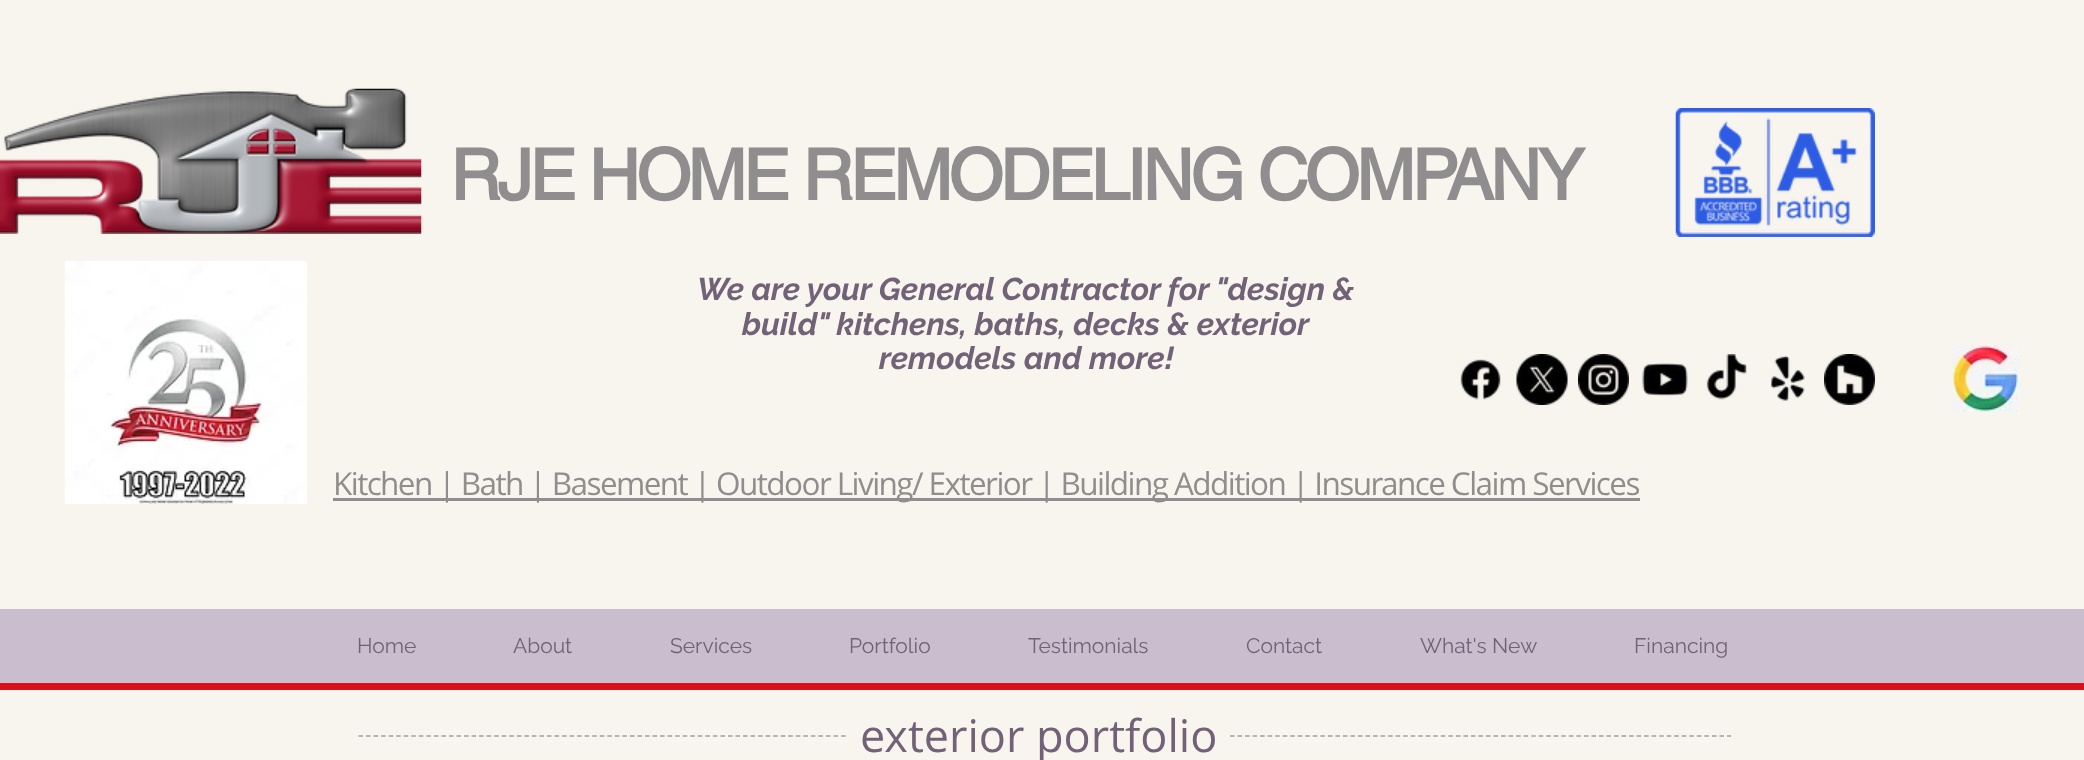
<?xml version="1.0" encoding="UTF-8"?>
<svg xmlns="http://www.w3.org/2000/svg" width="2084" height="760">
    <rect width="100%" height="100%" fill="#F8F5EF"/>
    <image x="0" y="88" width="422" height="146" href="img_01.png"/>
    <text x="450" y="200" font-family="helvetica" font-size="70.5" font-weight="700" letter-spacing="-3.5" fill="#8F8D8D">RJE HOME REMODELING COMPANY</text>
    <image x="1675" y="108" width="200" height="129" href="img_02.png"/>
    <image x="64" y="261" width="244" height="243" href="img_03.png"/>
    <text x="697" y="300" font-family="Raleway" font-size="31.5" font-weight="700" font-style="italic" fill="#726277">We are your General Contractor for "design &amp;</text>
    <text x="742" y="335" font-family="Raleway" font-size="31.5" font-weight="700" font-style="italic" fill="#726277">build" kitchens, baths, decks &amp; exterior</text>
    <text x="879" y="369" font-family="Raleway" font-size="31.5" font-weight="700" font-style="italic" fill="#726277">remodels and more!</text>
    <image x="1460" y="359" width="41" height="41" href="img_04.png"/>
    <image x="1516" y="354" width="52" height="51" href="img_05.png"/>
    <image x="1578" y="354" width="51" height="51" href="img_06.png"/>
    <image x="1642" y="363" width="46" height="33" href="img_07.png"/>
    <image x="1706" y="354" width="41" height="46" href="img_08.png"/>
    <image x="1770" y="355" width="35" height="46" href="img_09.png"/>
    <image x="1824" y="354" width="51" height="51" href="img_10.png"/>
    <image x="1951" y="345" width="68" height="68" href="img_11.png"/>
    <rect x="333" y="498" width="1307" height="3" fill="#8F8D8D"/>
    <text x="333" y="495" font-family="Open Sans" font-size="31.5" letter-spacing="-1.58" fill="#8F8D8D">Kitchen | Bath | Basement | Outdoor Living/ Exterior | Building Addition | Insurance Claim Services</text>
    <rect x="0" y="609" width="2084" height="74" fill="#CABDCD"/>
    <text x="357" y="653" font-family="Raleway" font-size="21" fill="#726277">Home</text>
    <text x="513" y="653" font-family="Raleway" font-size="21" fill="#726277">About</text>
    <text x="670" y="653" font-family="Raleway" font-size="21" fill="#726277">Services</text>
    <text x="849" y="653" font-family="Raleway" font-size="21" fill="#726277">Portfolio</text>
    <text x="1028" y="653" font-family="Raleway" font-size="21" fill="#726277">Testimonials</text>
    <text x="1246" y="653" font-family="Raleway" font-size="21" fill="#726277">Contact</text>
    <text x="1420" y="653" font-family="Raleway" font-size="21" fill="#726277">What's New</text>
    <text x="1634" y="653" font-family="Raleway" font-size="21" fill="#726277">Financing</text>
    <rect x="0" y="683" width="2084" height="7" fill="#DB0F17"/>
    <path d="M 358.5 736 H 846" fill="none" stroke="#A89DA7" stroke-width="1.5" stroke-dasharray="4.5 3.04"/>
    <text x="860" y="752" font-family="Open Sans" font-size="45" fill="#726277">exterior portfolio</text>
    <path d="M 1230 736 H 1731" fill="none" stroke="#A89DA7" stroke-width="1.5" stroke-dasharray="4.5 3.03"/>
</svg>
